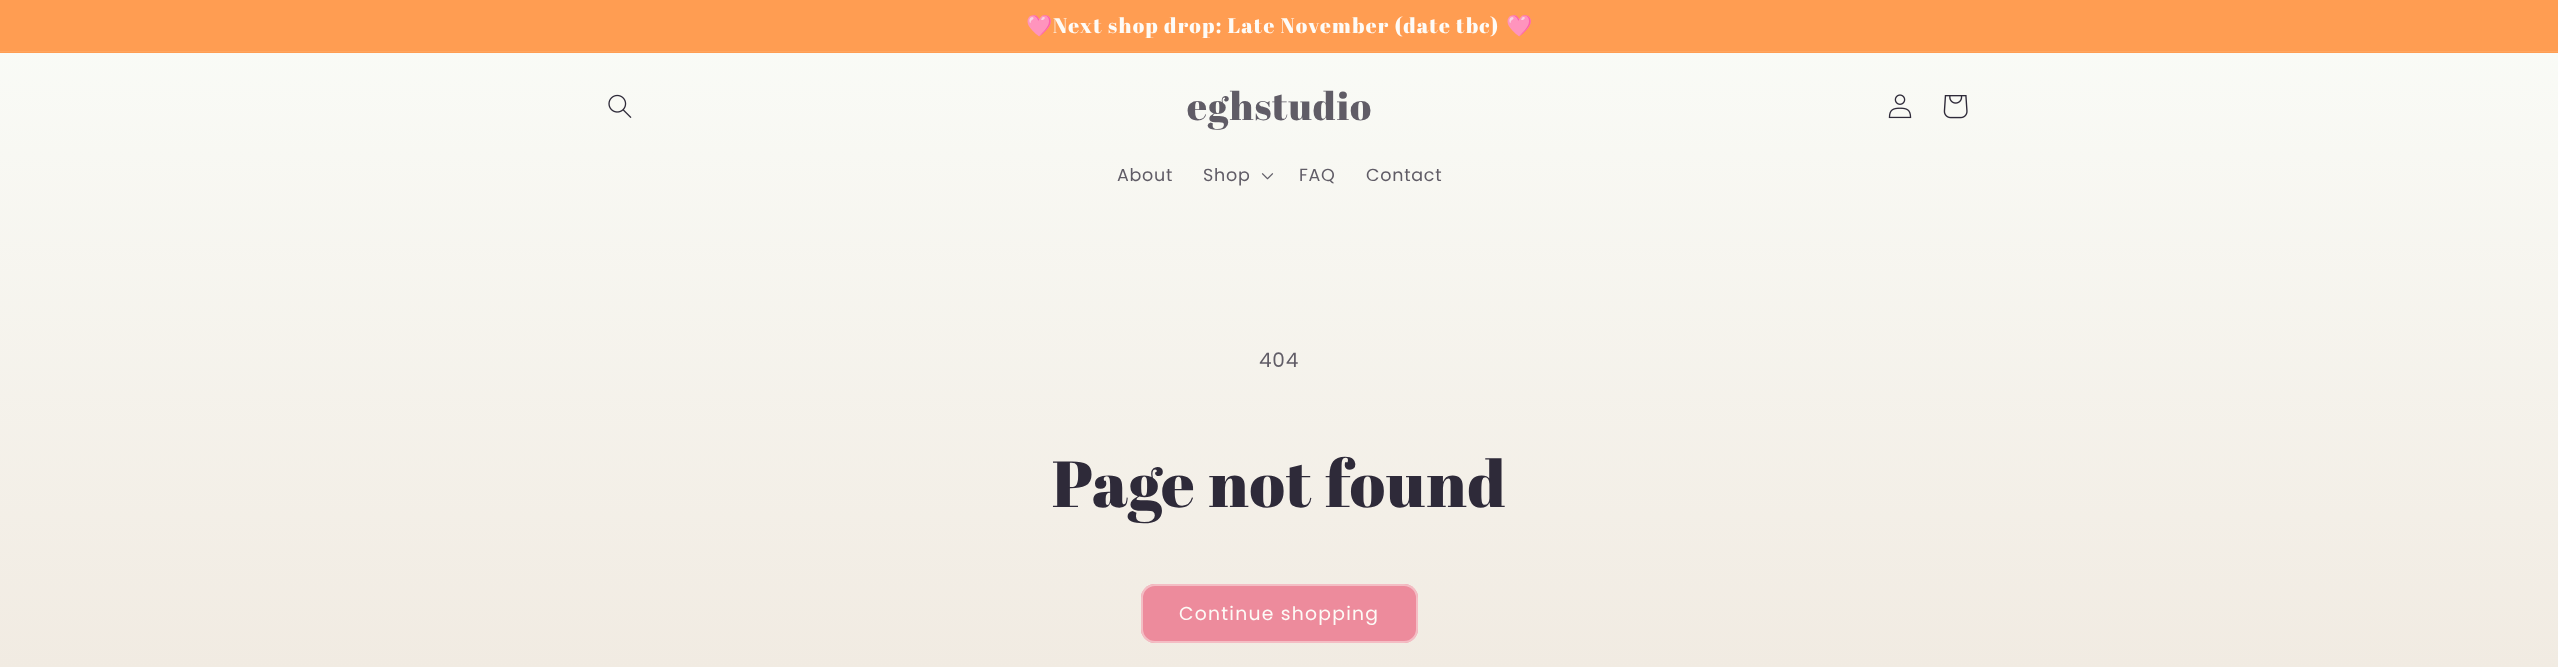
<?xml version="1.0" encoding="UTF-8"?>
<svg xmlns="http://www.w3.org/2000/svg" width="2558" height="667">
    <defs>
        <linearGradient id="g1" gradientUnits="userSpaceOnUse" x1="1279" y1="0" x2="1279" y2="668"><stop offset="0" stop-color="#FAFCF8"/><stop offset="1" stop-color="#F1EBE2"/></linearGradient>
        <linearGradient id="g2" gradientUnits="userSpaceOnUse" x1="1972" y1="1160" x2="586" y2="-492"><stop offset="1" stop-color="#FF9D52"/><stop offset="1" stop-color="#18B44A"/></linearGradient>
    </defs>
    <rect width="100%" height="100%" fill="#FFFFFF"/>
    <rect x="0" y="53" width="2558" height="614" fill="url(#g1)"/>
    <rect x="0" y="0" width="2558" height="53" fill="url(#g2)"/>
    <rect x="0" y="51" width="2558" height="1" fill="#FFA55F"/>
    <text x="1026" y="33" font-family="Noto Color Emoji" font-size="21.1" letter-spacing="1.25" fill="#FDFBF7">🩷</text>
    <text x="1053" y="33" font-family="Abril Fatface" font-size="21.1" letter-spacing="1.25" fill="#FDFBF7">Next shop drop: Late November (date tbc)</text>
    <text x="1506" y="33" font-family="Noto Color Emoji" font-size="21.1" letter-spacing="1.25" fill="#FDFBF7">🩷</text>
    <image x="608" y="94" width="24" height="24" href="img_01.png"/>
    <text x="1187" y="120" font-family="Abril Fatface" font-size="39" letter-spacing="1" fill="#605C66">eghstudio</text>
    <image x="1888" y="94" width="24" height="25" href="img_02.png"/>
    <image x="1943" y="95" width="25" height="24" href="img_03.png"/>
    <text x="1117" y="181" font-family="Poppins" font-size="17.5" letter-spacing="0.75" fill="#605C66">About</text>
    <text x="1203" y="181" font-family="Poppins" font-size="17.5" letter-spacing="0.75" fill="#605C66">Shop</text>
    <image x="1261" y="173" width="13" height="7" href="img_04.png"/>
    <text x="1299" y="181" font-family="Poppins" font-size="17.5" letter-spacing="0.75" fill="#605C66">FAQ</text>
    <text x="1366" y="181" font-family="Poppins" font-size="17.5" letter-spacing="0.75" fill="#605C66">Contact</text>
    <text x="1259" y="367" font-family="Poppins" font-size="20" letter-spacing="0.75" fill="#605C66">404</text>
    <text x="1052" y="507" font-family="Abril Fatface" font-size="65" letter-spacing="1" fill="#2E2A39">Page not found</text>
    <rect x="1141" y="584" width="277" height="59" rx="14" fill="#ED8B9C"/>
    <rect x="1141.5" y="584.5" width="276" height="58" rx="13.5" fill="none" stroke="#ED8B9C"/>
    <rect x="1142" y="585" width="275" height="57" rx="13" fill="none" stroke="#FDFBF7" stroke-opacity="0.45" stroke-width="2"/>
    <text x="1179" y="620" font-family="Poppins" font-size="18.75" letter-spacing="1.25" fill="#FDFBF7">Continue shopping</text>
</svg>
